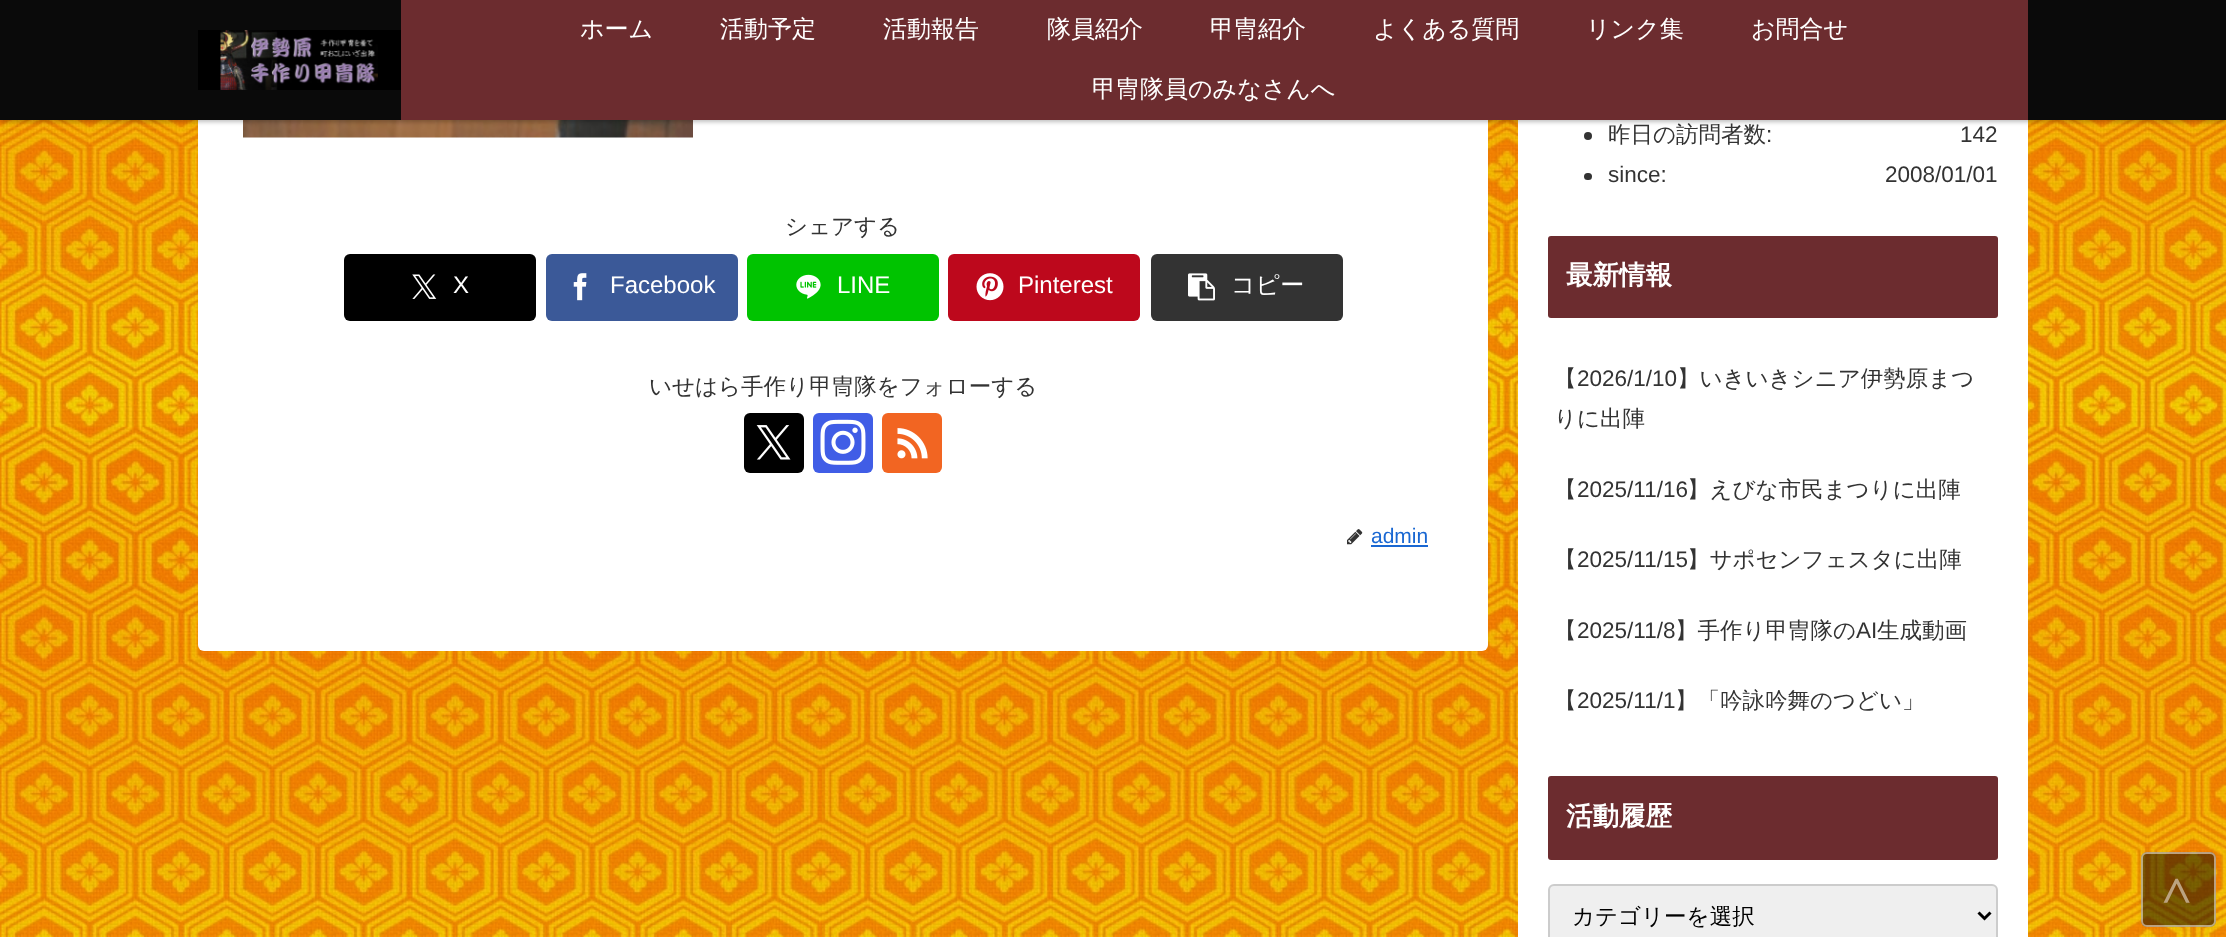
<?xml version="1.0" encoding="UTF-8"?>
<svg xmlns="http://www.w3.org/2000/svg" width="2226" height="937">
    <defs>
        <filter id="blur1" x="-50%" y="-200%" width="200%" height="500%"><feGaussianBlur stdDeviation="2"/></filter>
    </defs>
    <rect width="100%" height="100%" fill="#FFFFFF"/>
    <image x="0" y="120" width="2226" height="817" href="img_01.png"/>
    <rect x="198" y="-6" width="1290" height="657" rx="6" fill="#FFFFFF"/>
    <image x="243" y="120" width="450" height="18" href="img_03.png"/>
    <rect x="1518" y="120" width="510" height="817" fill="#FFFFFF"/>
    <rect x="0" y="2" width="2226" height="120" fill="#000000" fill-opacity="0.25" filter="url(#blur1)"/>
    <rect x="0" y="0" width="2226" height="120" fill="#0A0A0A"/>
    <rect x="198" y="30" width="203" height="60" fill="#000000"/>
    <image x="220" y="30" width="158" height="60" href="img_02.png"/>
    <rect x="401" y="0" width="1627" height="120" fill="#6C2C2F"/>
    <text x="580" y="37" font-family="WenQuanYi Zen Hei" font-size="24" font-weight="500" fill="#FFFFFF">ホーム</text>
    <text x="720" y="37" font-family="WenQuanYi Zen Hei" font-size="24" font-weight="500" fill="#FFFFFF">活動予定</text>
    <text x="883" y="37" font-family="WenQuanYi Zen Hei" font-size="24" font-weight="500" fill="#FFFFFF">活動報告</text>
    <text x="1047" y="37" font-family="WenQuanYi Zen Hei" font-size="24" font-weight="500" fill="#FFFFFF">隊員紹介</text>
    <text x="1210" y="37" font-family="WenQuanYi Zen Hei" font-size="24" font-weight="500" fill="#FFFFFF">甲冑紹介</text>
    <text x="1373" y="37" font-family="WenQuanYi Zen Hei" font-size="24" font-weight="500" fill="#FFFFFF">よくある質問</text>
    <text x="1586" y="37" font-family="WenQuanYi Zen Hei" font-size="24" font-weight="500" fill="#FFFFFF">リンク集</text>
    <text x="1751" y="37" font-family="WenQuanYi Zen Hei" font-size="24" font-weight="500" fill="#FFFFFF">お問合せ</text>
    <text x="1092" y="97" font-family="WenQuanYi Zen Hei" font-size="24" font-weight="500" fill="#FFFFFF">甲冑隊員のみなさんへ</text>
    <text x="785" y="234" font-family="WenQuanYi Zen Hei" font-size="22.5" font-weight="500" fill="#333333">シェアする</text>
    <rect x="344" y="254" width="192" height="67" rx="6" fill="#000000"/>
    <image x="412" y="274" width="25" height="25" href="img_04.png"/>
    <text x="453" y="293" font-family="Liberation Sans" font-size="24" fill="#FFFFFF">X</text>
    <rect x="546" y="254" width="192" height="67" rx="6" fill="#3B5998"/>
    <image x="573" y="273" width="14" height="28" href="img_05.png"/>
    <text x="610" y="293" font-family="Liberation Sans" font-size="24" fill="#FFFFFF">Facebook</text>
    <rect x="747" y="254" width="192" height="67" rx="6" fill="#00C300"/>
    <image x="796" y="274" width="25" height="25" href="img_06.png"/>
    <text x="837" y="293" font-family="Liberation Sans" font-size="24" fill="#FFFFFF">LINE</text>
    <rect x="948" y="254" width="192" height="67" rx="6" fill="#BD081C"/>
    <image x="976" y="273" width="28" height="28" href="img_07.png"/>
    <text x="1018" y="293" font-family="Liberation Sans" font-size="24" fill="#FFFFFF">Pinterest</text>
    <rect x="1151" y="254" width="192" height="67" rx="6" fill="#333333"/>
    <image x="1188" y="273" width="27" height="28" href="img_08.png"/>
    <text x="1231" y="293" font-family="WenQuanYi Zen Hei" font-size="24" font-weight="500" fill="#FFFFFF">コピー</text>
    <text x="649" y="394" font-family="WenQuanYi Zen Hei" font-size="22.5" font-weight="500" fill="#333333">いせはら手作り甲冑隊をフォローする</text>
    <rect x="744" y="413" width="60" height="60" rx="6" fill="#000000"/>
    <image x="756" y="425" width="35" height="35" href="img_09.png"/>
    <rect x="813" y="413" width="60" height="60" rx="6" fill="#405DE6"/>
    <image x="820" y="419" width="46" height="46" href="img_10.png"/>
    <rect x="882" y="413" width="60" height="60" rx="6" fill="#F26522"/>
    <image x="897" y="428" width="31" height="31" href="img_11.png"/>
    <image x="1347" y="529" width="16" height="16" href="img_12.png"/>
    <text x="1371" y="543" font-family="Liberation Sans" font-size="21" fill="#1967D2">admin</text>
    <rect x="1371" y="545" width="57" height="2" fill="#1967D2"/>
    <circle cx="1588" cy="136" r="4" fill="#333333"/>
    <text x="1608" y="142" font-family="WenQuanYi Zen Hei" font-size="22.5" font-weight="500" fill="#333333">昨日の訪問者数</text>
    <text x="1766" y="142" font-family="Liberation Sans" font-size="22.5" fill="#333333">:</text>
    <text x="1960" y="142" font-family="Liberation Sans" font-size="22.5" fill="#333333">142</text>
    <rect x="1584" y="173" width="8" height="7" rx="3.5" fill="#333333"/>
    <text x="1608" y="182" font-family="Liberation Sans" font-size="22.5" fill="#333333">since:</text>
    <text x="1885" y="182" font-family="Liberation Sans" font-size="22.5" fill="#333333">2008/01/01</text>
    <rect x="1548" y="236" width="450" height="82" rx="3" fill="#6C2C2F"/>
    <text x="1566" y="284" font-family="WenQuanYi Zen Hei" font-size="26.5" font-weight="700" fill="#FFFFFF">最新情報</text>
    <text x="1554" y="386" font-family="WenQuanYi Zen Hei" font-size="22.5" font-weight="500" fill="#333333">【</text>
    <text x="1577" y="386" font-family="Liberation Sans" font-size="22.5" fill="#333333">2026/1/10</text>
    <text x="1677" y="386" font-family="WenQuanYi Zen Hei" font-size="22.5" font-weight="500" fill="#333333">】いきいきシニア伊勢原まつ</text>
    <text x="1554" y="426" font-family="WenQuanYi Zen Hei" font-size="22.5" font-weight="500" fill="#333333">りに出陣</text>
    <text x="1554" y="497" font-family="WenQuanYi Zen Hei" font-size="22.5" font-weight="500" fill="#333333">【</text>
    <text x="1577" y="497" font-family="Liberation Sans" font-size="22.5" fill="#333333">2025/11/16</text>
    <text x="1687" y="497" font-family="WenQuanYi Zen Hei" font-size="22.5" font-weight="500" fill="#333333">】えびな市民まつりに出陣</text>
    <text x="1554" y="567" font-family="WenQuanYi Zen Hei" font-size="22.5" font-weight="500" fill="#333333">【</text>
    <text x="1577" y="567" font-family="Liberation Sans" font-size="22.5" fill="#333333">2025/11/15</text>
    <text x="1687" y="567" font-family="WenQuanYi Zen Hei" font-size="22.5" font-weight="500" fill="#333333">】サポセンフェスタに出陣</text>
    <text x="1554" y="638" font-family="WenQuanYi Zen Hei" font-size="22.5" font-weight="500" fill="#333333">【</text>
    <text x="1577" y="638" font-family="Liberation Sans" font-size="22.5" fill="#333333">2025/11/8</text>
    <text x="1675" y="638" font-family="WenQuanYi Zen Hei" font-size="22.5" font-weight="500" fill="#333333">】手作り甲冑隊の</text>
    <text x="1856" y="638" font-family="Liberation Sans" font-size="22.5" fill="#333333">AI</text>
    <text x="1877" y="638" font-family="WenQuanYi Zen Hei" font-size="22.5" font-weight="500" fill="#333333">生成動画</text>
    <text x="1554" y="708" font-family="WenQuanYi Zen Hei" font-size="22.5" font-weight="500" fill="#333333">【</text>
    <text x="1577" y="708" font-family="Liberation Sans" font-size="22.5" fill="#333333">2025/11/1</text>
    <text x="1675" y="708" font-family="WenQuanYi Zen Hei" font-size="22.5" font-weight="500" fill="#333333">】「吟詠吟舞のつどい」</text>
    <rect x="1548" y="776" width="450" height="84" rx="3" fill="#6C2C2F"/>
    <text x="1566" y="825" font-family="WenQuanYi Zen Hei" font-size="26.5" font-weight="700" fill="#FFFFFF">活動履歴</text>
    <rect x="1549" y="885" width="448" height="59" rx="5" fill="#EFEFEF" stroke="#CCCCCC" stroke-width="2"/>
    <path d="M 1978.5 912.5 L 1984.5 918.5 L 1990.5 912.5" fill="none" stroke="#000000" stroke-width="3"/>
    <text x="1572" y="924" font-family="WenQuanYi Zen Hei" font-size="22.5" font-weight="500" fill="#000000">カテゴリーを選択</text>
    <rect x="2141" y="852" width="75" height="75" rx="6" fill="#000000" fill-opacity="0.5"/>
    <rect x="2142" y="853" width="73" height="73" rx="5" fill="none" stroke="#FFFFFF" stroke-opacity="0.5" stroke-width="2"/>
    <text x="2162" y="908" font-family="Liberation Serif" font-size="52" font-weight="700" fill="#BBA380">˄</text>
</svg>
